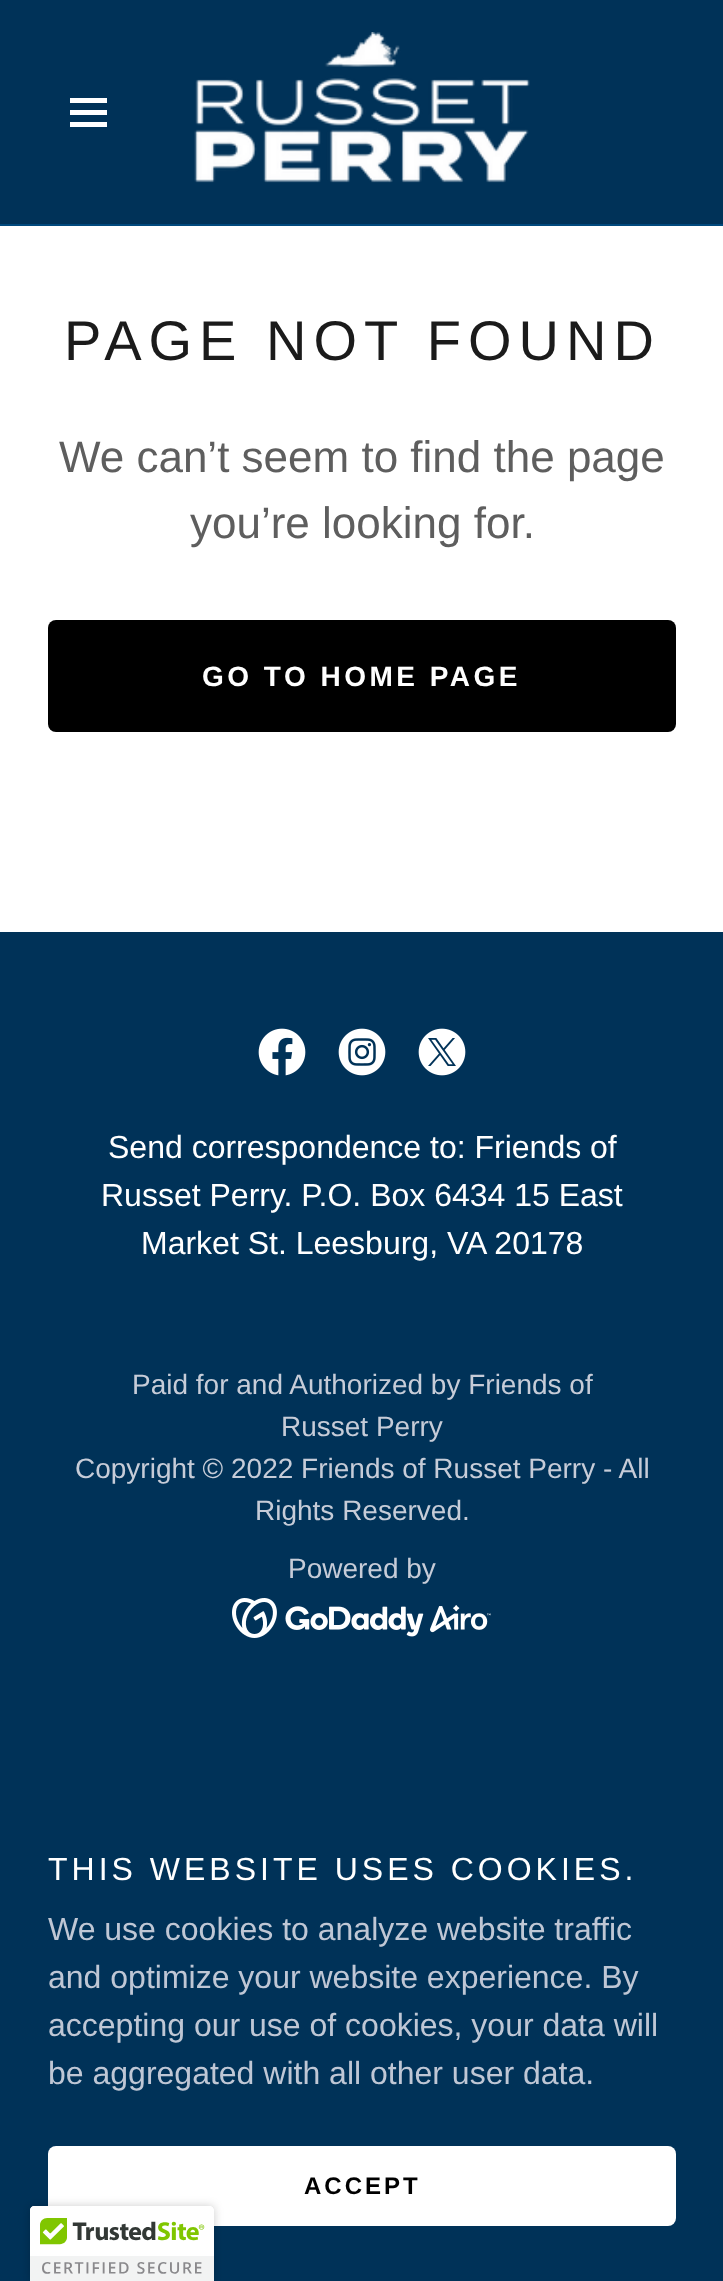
<?xml version="1.0" encoding="UTF-8"?>
<svg xmlns="http://www.w3.org/2000/svg" width="723" height="2281">
    <defs>
        <filter id="blur1" x="-50%" y="-200%" width="200%" height="500%"><feGaussianBlur stdDeviation="5"/></filter>
    </defs>
    <rect width="100%" height="100%" fill="#003258"/>
    <rect x="70" y="98" width="37" height="5" fill="#FFFFFF"/>
    <rect x="70" y="110" width="37" height="5" fill="#FFFFFF"/>
    <rect x="70" y="122" width="37" height="5" fill="#FFFFFF"/>
    <image x="194" y="32" width="336" height="151" href="img_01.png"/>
    <rect x="0" y="224" width="723" height="2" fill="#00497D"/>
    <rect x="0" y="226" width="723" height="706" fill="#FFFFFF"/>
    <text x="64" y="360" font-family="Liberation Sans" font-size="56" letter-spacing="7" fill="#1B1B1B">PAGE NOT FOUND</text>
    <text x="59" y="472" font-family="Liberation Sans" font-size="44" fill="#5E5E5E">We can’t seem to find the page</text>
    <text x="190" y="538" font-family="Liberation Sans" font-size="44" fill="#5E5E5E">you’re looking for.</text>
    <rect x="48" y="620" width="628" height="112" rx="8" fill="#000000"/>
    <text x="202" y="686" font-family="Liberation Sans" font-size="28" font-weight="700" letter-spacing="3.5" fill="#FFFFFF">GO TO HOME PAGE</text>
    <image x="258" y="1028" width="48" height="48" href="img_02.png"/>
    <image x="338" y="1028" width="48" height="48" href="img_03.png"/>
    <image x="418" y="1028" width="48" height="48" href="img_04.png"/>
    <text x="108" y="1158" font-family="Liberation Sans" font-size="32" fill="#FFFFFF">Send correspondence to: Friends of</text>
    <text x="101" y="1206" font-family="Liberation Sans" font-size="32" fill="#FFFFFF">Russet Perry. P.O. Box 6434 15 East</text>
    <text x="141" y="1254" font-family="Liberation Sans" font-size="32" fill="#FFFFFF">Market St. Leesburg, VA 20178</text>
    <text x="132" y="1394" font-family="Liberation Sans" font-size="28" fill="#C6CCD8">Paid for and Authorized by Friends of</text>
    <text x="281" y="1436" font-family="Liberation Sans" font-size="28" fill="#C6CCD8">Russet Perry</text>
    <text x="75" y="1478" font-family="Liberation Sans" font-size="28" fill="#C6CCD8">Copyright © 2022 Friends of Russet Perry - All</text>
    <text x="255" y="1520" font-family="Liberation Sans" font-size="28" fill="#C6CCD8">Rights Reserved.</text>
    <text x="288" y="1578" font-family="Liberation Sans" font-size="28" fill="#C6CCD8">Powered by</text>
    <image x="232" y="1598" width="259" height="40" href="img_05.png"/>
    <text x="48" y="1880" font-family="Liberation Sans" font-size="32" letter-spacing="4" fill="#FFFFFF">THIS WEBSITE USES COOKIES.</text>
    <text font-family="Liberation Sans" font-size="32" fill="#BFC7D5">
        <tspan x="48" y="1940">We use cookies to analyze website traffic</tspan>
        <tspan x="48" y="1988">and optimize your website experience. By</tspan>
        <tspan x="48" y="2036">accepting our use of cookies, your data will</tspan>
        <tspan x="48" y="2084">be aggregated with all other user data.</tspan>
    </text>
    <rect x="48" y="2146" width="628" height="80" rx="8" fill="#FFFFFF"/>
    <text x="304" y="2194" font-family="Liberation Sans" font-size="24" font-weight="700" letter-spacing="3" fill="#000000">ACCEPT</text>
    <rect x="30" y="2206" width="184" height="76" rx="4" fill="#000000" fill-opacity="0.2" filter="url(#blur1)"/>
    <path d="M 34 2206 H 210 C 212 2206 214 2208 214 2210 V 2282 H 30 V 2210 C 30 2208 32 2206 34 2206 Z" fill="#FFFFFF"/>
    <image x="30" y="2206" width="184" height="75" href="img_06.png"/>
</svg>
